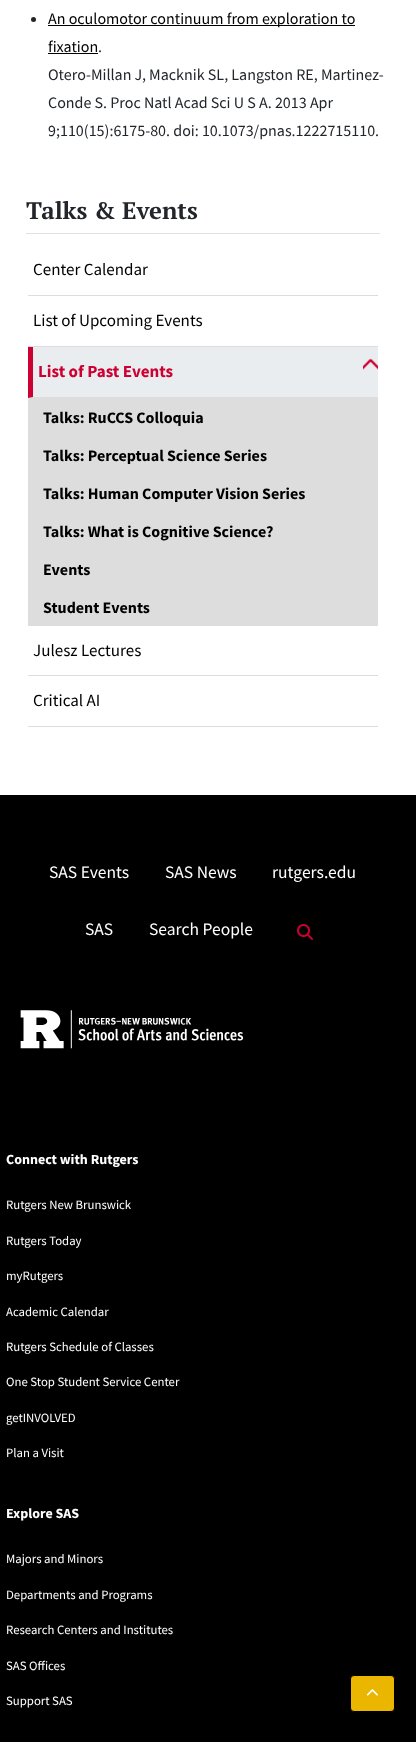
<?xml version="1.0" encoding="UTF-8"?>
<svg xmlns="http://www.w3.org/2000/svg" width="416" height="1742">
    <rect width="100%" height="100%" fill="#FFFFFF"/>
    <circle cx="33.5" cy="19.5" r="2.5" fill="#22262A"/>
    <rect x="48" y="25" width="307" height="1" fill="#000000"/>
    <text font-family="Source Sans Pro" font-size="16" fill="#000000">
        <tspan x="48" y="24">An oculomotor continuum from exploration to</tspan>
        <tspan x="48" y="52">fixation</tspan>
    </text>
    <rect x="48" y="53" width="50" height="1" fill="#000000"/>
    <text x="98" y="52" font-family="Source Sans Pro" font-size="16" fill="#22262A">.</text>
    <text font-family="Source Sans Pro" font-size="16" fill="#22262A">
        <tspan x="48" y="80">Otero-Millan J, Macknik SL, Langston RE, Martinez-</tspan>
        <tspan x="48" y="108">Conde S. Proc Natl Acad Sci U S A. 2013 Apr</tspan>
        <tspan x="48" y="136">9;110(15):6175-80. doi: 10.1073/pnas.1222715110.</tspan>
    </text>
    <rect x="26" y="233" width="354" height="1" fill="#E1E1E1"/>
    <text x="26" y="219" font-family="PT Serif" font-size="24" font-weight="700" fill="#22262A">Talks &amp; Events</text>
    <rect x="28" y="295" width="350" height="1" fill="#DDDDDD"/>
    <text x="33" y="275" font-family="Source Sans Pro" font-size="17" fill="#000000">Center Calendar</text>
    <rect x="28" y="346" width="350" height="1" fill="#DDDDDD"/>
    <text x="33" y="326" font-family="Source Sans Pro" font-size="17" fill="#000000">List of Upcoming Events</text>
    <rect x="28" y="347" width="350" height="51" fill="#EAEDF0"/>
    <path d="M 378 398 H 28 L 33 397 H 378 Z" fill="#DDDDDD"/>
    <path d="M 28 398 V 347 H 33 V 397 Z" fill="#CC0033"/>
    <text x="38" y="377" font-family="Source Sans Pro" font-size="17" font-weight="700" fill="#CC0033">List of Past Events</text>
    <image x="363" y="358" width="15" height="12" href="img_01.png"/>
    <rect x="28" y="398" width="350" height="228" fill="#DDDDDD"/>
    <text x="43" y="423" font-family="Source Sans Pro" font-size="16" font-weight="700" fill="#000000">Talks: RuCCS Colloquia</text>
    <text x="43" y="461" font-family="Source Sans Pro" font-size="16" font-weight="700" fill="#000000">Talks: Perceptual Science Series</text>
    <text x="43" y="499" font-family="Source Sans Pro" font-size="16" font-weight="700" fill="#000000">Talks: Human Computer Vision Series</text>
    <text x="43" y="537" font-family="Source Sans Pro" font-size="16" font-weight="700" fill="#000000">Talks: What is Cognitive Science?</text>
    <text x="43" y="575" font-family="Source Sans Pro" font-size="16" font-weight="700" fill="#000000">Events</text>
    <text x="43" y="613" font-family="Source Sans Pro" font-size="16" font-weight="700" fill="#000000">Student Events</text>
    <rect x="28" y="675" width="350" height="1" fill="#DDDDDD"/>
    <text x="33" y="656" font-family="Source Sans Pro" font-size="17" fill="#000000">Julesz Lectures</text>
    <rect x="28" y="726" width="350" height="1" fill="#DDDDDD"/>
    <text x="33" y="706" font-family="Source Sans Pro" font-size="17" fill="#000000">Critical AI</text>
    <rect x="0" y="795" width="416" height="947" fill="#000000"/>
    <text x="49" y="878" font-family="Source Sans Pro" font-size="17.5" fill="#FFFFFF">SAS Events</text>
    <text x="165" y="878" font-family="Source Sans Pro" font-size="17.5" fill="#FFFFFF">SAS News</text>
    <text x="272" y="878" font-family="Source Sans Pro" font-size="17.5" fill="#FFFFFF">rutgers.edu</text>
    <text x="85" y="935" font-family="Source Sans Pro" font-size="17.5" fill="#FFFFFF">SAS</text>
    <text x="149" y="935" font-family="Source Sans Pro" font-size="17.5" fill="#FFFFFF">Search People</text>
    <image x="297" y="924" width="16" height="16" href="img_02.png"/>
    <image x="20" y="1010" width="224" height="39" href="img_03.png"/>
    <text x="6" y="1164" font-family="Source Sans Pro" font-size="14" font-weight="700" fill="#FFFFFF">Connect with Rutgers</text>
    <text x="6" y="1209" font-family="Source Sans Pro" font-size="12.75" fill="#FFFFFF">Rutgers New Brunswick</text>
    <text x="6" y="1245" font-family="Source Sans Pro" font-size="12.75" fill="#FFFFFF">Rutgers Today</text>
    <text x="6" y="1280" font-family="Source Sans Pro" font-size="12.75" fill="#FFFFFF">myRutgers</text>
    <text x="6" y="1316" font-family="Source Sans Pro" font-size="12.75" fill="#FFFFFF">Academic Calendar</text>
    <text x="6" y="1351" font-family="Source Sans Pro" font-size="12.75" fill="#FFFFFF">Rutgers Schedule of Classes</text>
    <text x="6" y="1386" font-family="Source Sans Pro" font-size="12.75" fill="#FFFFFF">One Stop Student Service Center</text>
    <text x="6" y="1422" font-family="Source Sans Pro" font-size="12.75" fill="#FFFFFF">getINVOLVED</text>
    <text x="6" y="1457" font-family="Source Sans Pro" font-size="12.75" fill="#FFFFFF">Plan a Visit</text>
    <text x="6" y="1518" font-family="Source Sans Pro" font-size="14" font-weight="700" fill="#FFFFFF">Explore SAS</text>
    <text x="6" y="1563" font-family="Source Sans Pro" font-size="12.75" fill="#FFFFFF">Majors and Minors</text>
    <text x="6" y="1599" font-family="Source Sans Pro" font-size="12.75" fill="#FFFFFF">Departments and Programs</text>
    <text x="6" y="1634" font-family="Source Sans Pro" font-size="12.75" fill="#FFFFFF">Research Centers and Institutes</text>
    <text x="6" y="1670" font-family="Source Sans Pro" font-size="12.75" fill="#FFFFFF">SAS Offices</text>
    <text x="6" y="1705" font-family="Source Sans Pro" font-size="12.75" fill="#FFFFFF">Support SAS</text>
    <rect x="350.5" y="1675.5" width="44" height="36" rx="3.5" fill="#EBB600" stroke="#000000"/>
    <image x="366" y="1689" width="12" height="7" href="img_04.png"/>
</svg>
